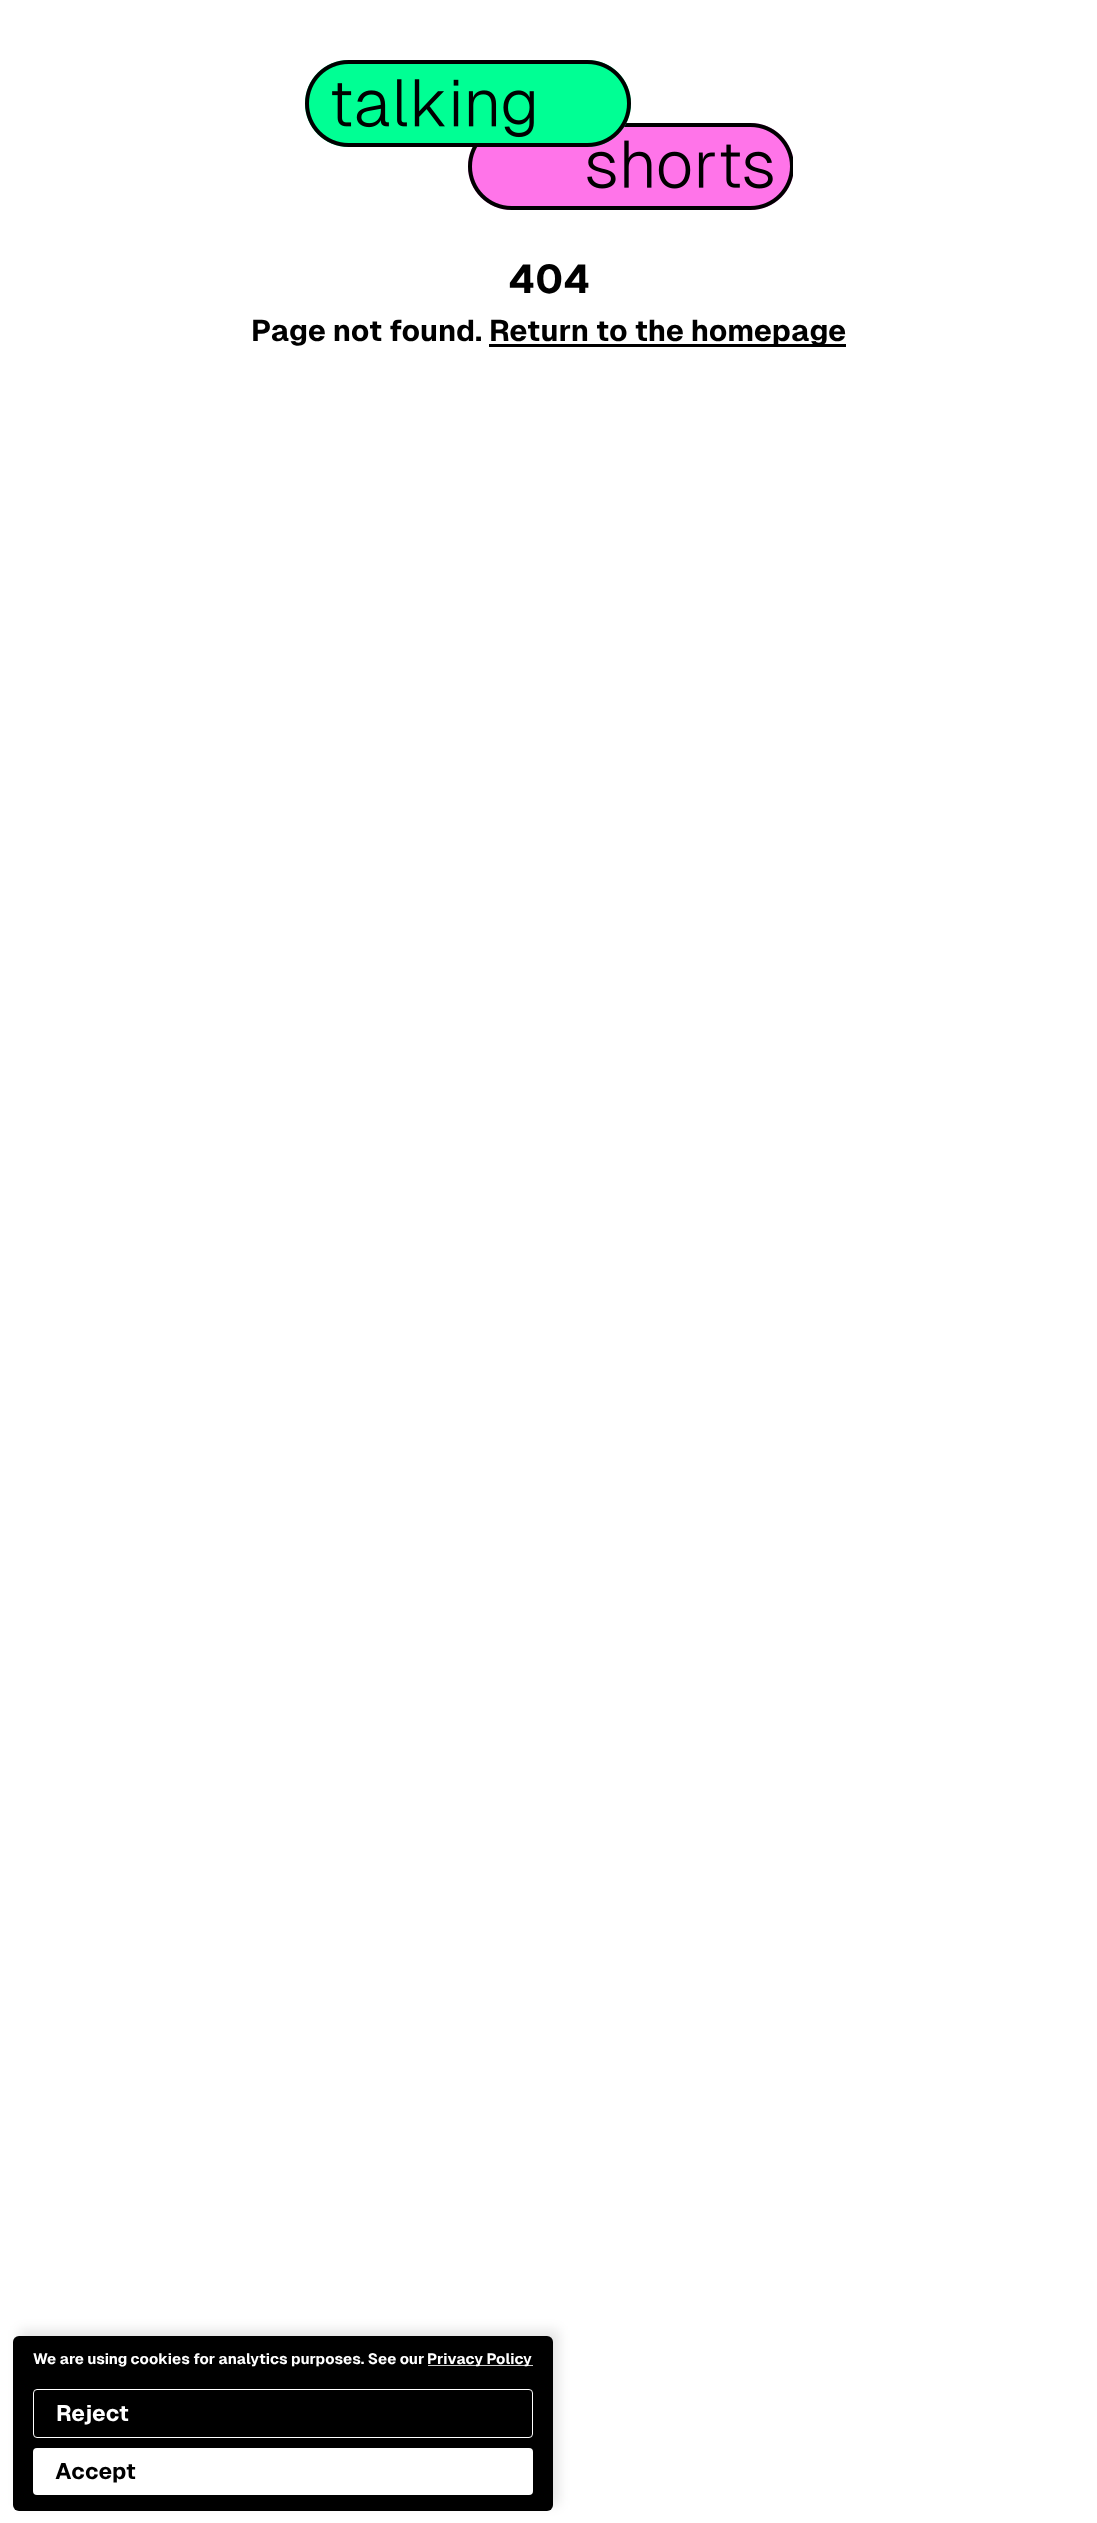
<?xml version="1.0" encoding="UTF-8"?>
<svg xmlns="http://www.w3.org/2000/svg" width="1097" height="2523">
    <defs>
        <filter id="blur1" x="-50%" y="-200%" width="200%" height="500%"><feGaussianBlur stdDeviation="6"/></filter>
    </defs>
    <rect width="100%" height="100%" fill="#FFFFFF"/>
    <image x="305" y="60" width="488" height="150" href="img_01.png"/>
    <text x="508" y="293" font-family="Geist" font-size="40" font-weight="700" fill="#000000">404</text>
    <text x="251" y="341" font-family="Geist" font-size="30" font-weight="700" fill="#000000">Page not found.</text>
    <rect x="489" y="344" width="357" height="3" fill="#000000"/>
    <text x="489" y="341" font-family="Geist" font-size="30" font-weight="700" fill="#000000">Return to the homepage</text>
    <rect x="19" y="2330" width="540" height="175" fill="#000000" fill-opacity="0.1" filter="url(#blur1)"/>
    <rect x="13" y="2336" width="540" height="175" rx="6" fill="#000000"/>
    <text x="33" y="2364" font-family="Geist" font-size="15" font-weight="700" fill="#FFFFFF">We are using cookies for analytics purposes. See our</text>
    <rect x="428" y="2365" width="105" height="1" fill="#CCCCCC"/>
    <text x="427" y="2364" font-family="Geist" font-size="15" font-weight="700" fill="#FFFFFF">Privacy Policy</text>
    <rect x="33.5" y="2389.5" width="499" height="48" rx="3.5" fill="none" stroke="#FFFFFF"/>
    <text x="56" y="2421" font-family="Geist" font-size="22.5" font-weight="700" fill="#FFFFFF">Reject</text>
    <rect x="33" y="2448" width="500" height="47" rx="4" fill="#FFFFFF"/>
    <text x="55" y="2479" font-family="Geist" font-size="22.5" font-weight="700" fill="#000000">Accept</text>
</svg>
